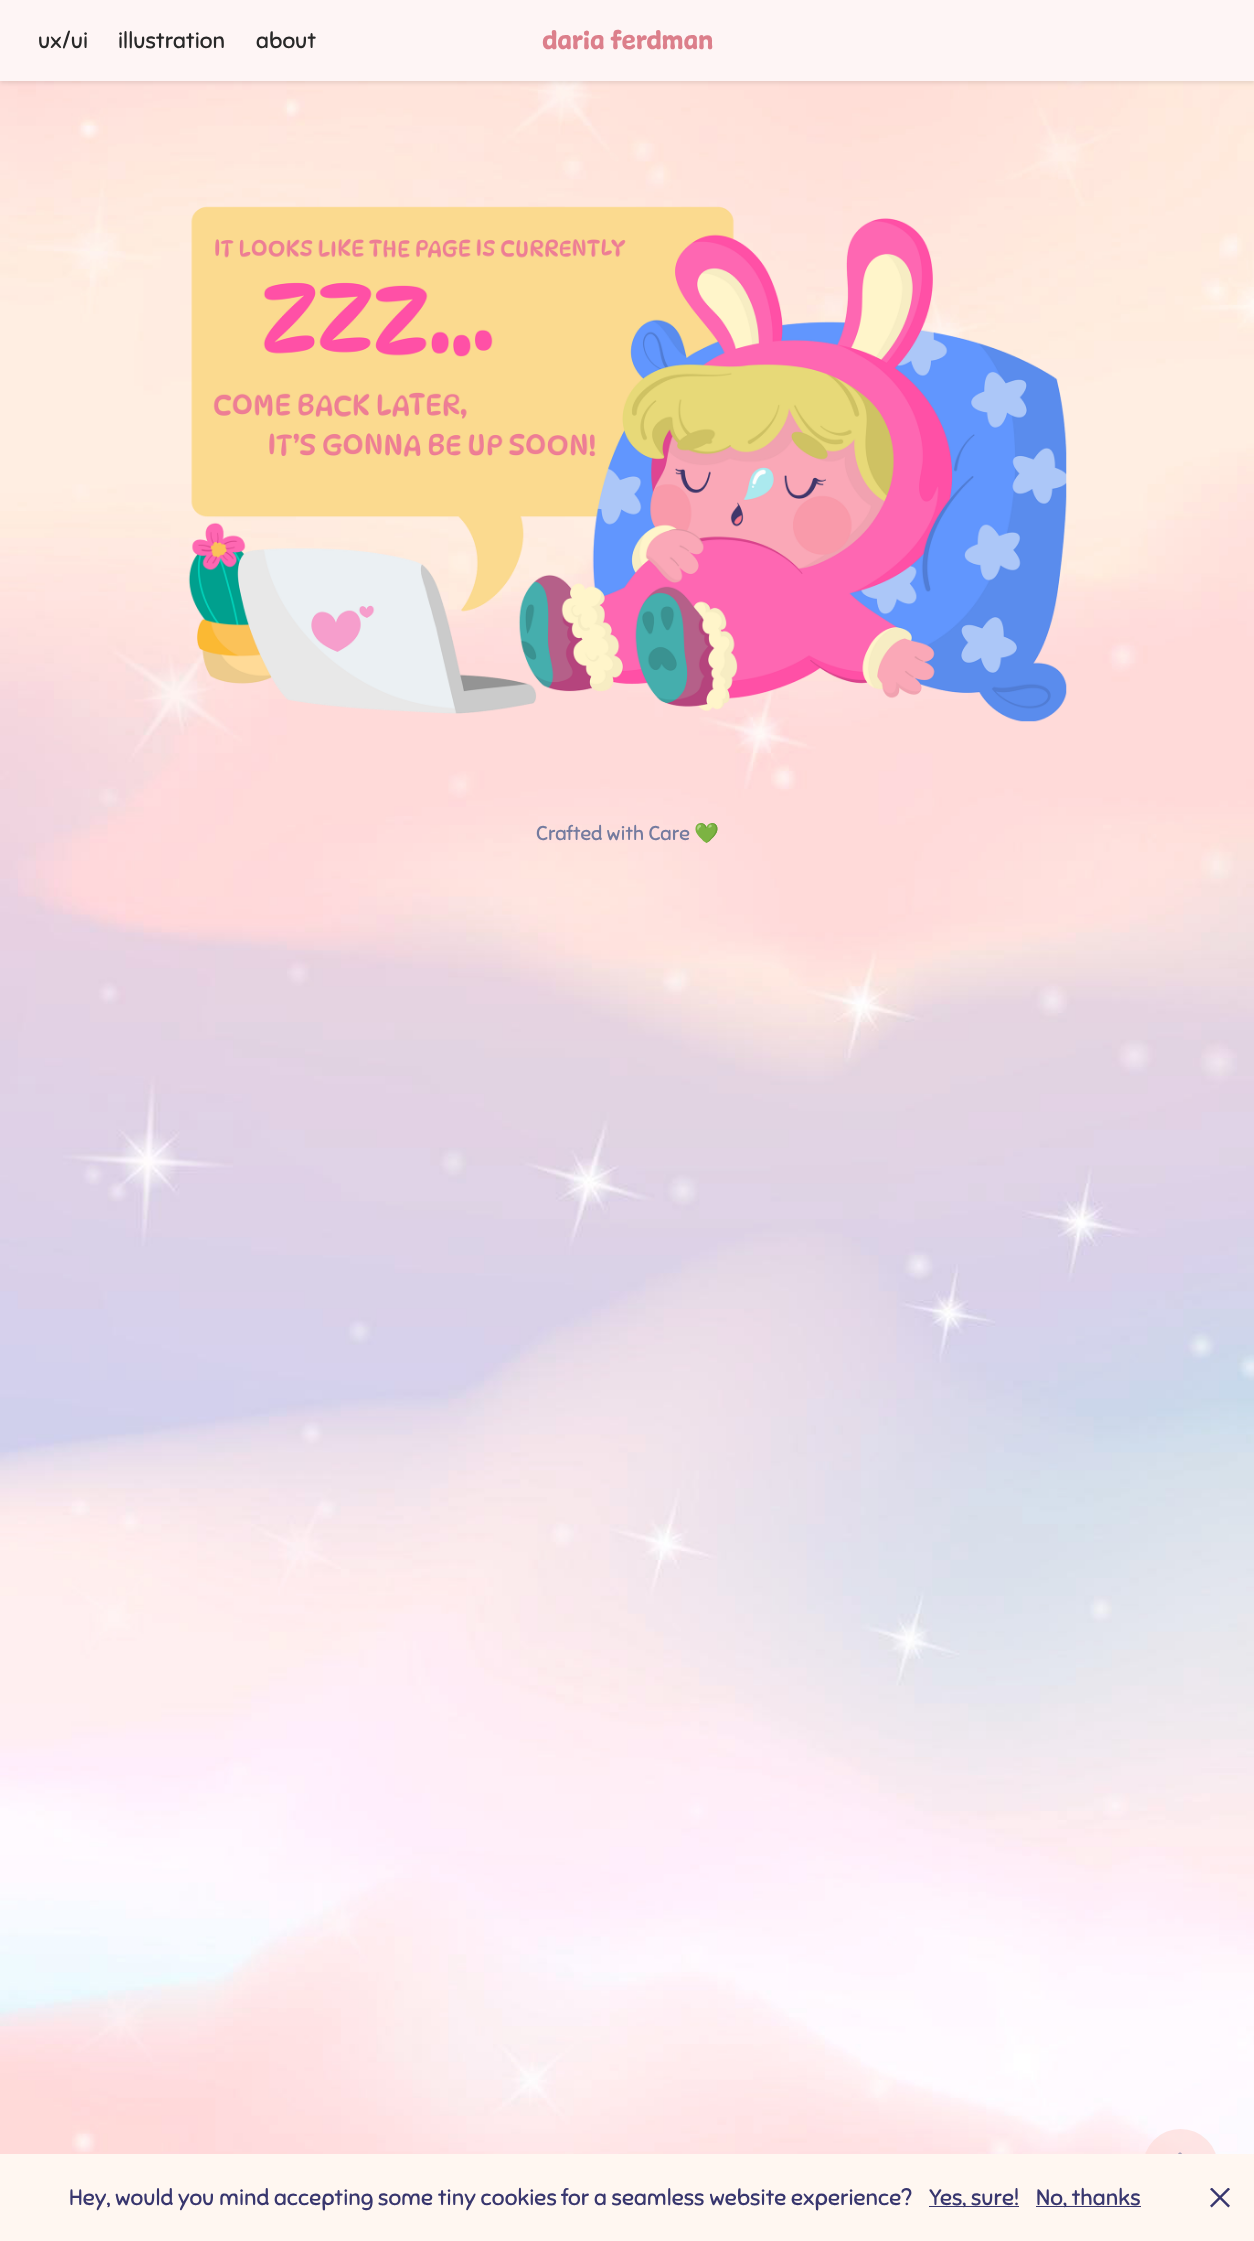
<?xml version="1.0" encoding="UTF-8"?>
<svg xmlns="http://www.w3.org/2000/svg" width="1254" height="2241">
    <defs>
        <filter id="blur1" x="-50%" y="-200%" width="200%" height="500%"><feGaussianBlur stdDeviation="2"/></filter>
    </defs>
    <rect width="100%" height="100%" fill="#FFFFFF"/>
    <image x="0" y="81" width="1254" height="2073" href="img_01.png"/>
    <rect x="0" y="1" width="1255" height="82" fill="#000000" fill-opacity="0.1" filter="url(#blur1)"/>
    <rect x="0" y="0" width="1254" height="81" fill="#FEF5F5"/>
    <text x="38" y="48" font-family="Sniglet" font-size="22.5" fill="#282828">ux/ui</text>
    <text x="118" y="48" font-family="Sniglet" font-size="22.5" fill="#282828">illustration</text>
    <text x="256" y="48" font-family="Sniglet" font-size="22.5" fill="#282828">about</text>
    <text x="542" y="49" font-family="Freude" font-size="27.5" fill="#DC7F8B">daria ferdman</text>
    <image x="188" y="206" width="879" height="516" href="img_02.png"/>
    <circle cx="1180.5" cy="2166.5" r="37.5" fill="#FEDBD9" fill-opacity="0.7"/>
    <image x="1178" y="2152" width="4" height="2" href="img_03.png"/>
    <text x="536" y="840" font-family="Sniglet" font-size="20" fill="#747B9F">Crafted with Care</text>
    <text x="694" y="840" font-family="Noto Color Emoji" font-size="20" fill="#747B9F">💚</text>
    <rect x="0" y="2154" width="1254" height="87" fill="#FFF7F1"/>
    <text x="69" y="2205" font-family="Sniglet" font-size="22.5" fill="#38366E">Hey, would you mind accepting some tiny cookies for a seamless website experience?</text>
    <rect x="929" y="2206" width="90" height="1" fill="#38366E"/>
    <text x="929" y="2205" font-family="Sniglet" font-size="22.5" fill="#38366E">Yes, sure!</text>
    <rect x="1036" y="2206" width="105" height="1" fill="#38366E"/>
    <text x="1036" y="2205" font-family="Sniglet" font-size="22.5" fill="#38366E">No, thanks</text>
    <image x="1210" y="2188" width="20" height="20" href="img_04.png"/>
</svg>
